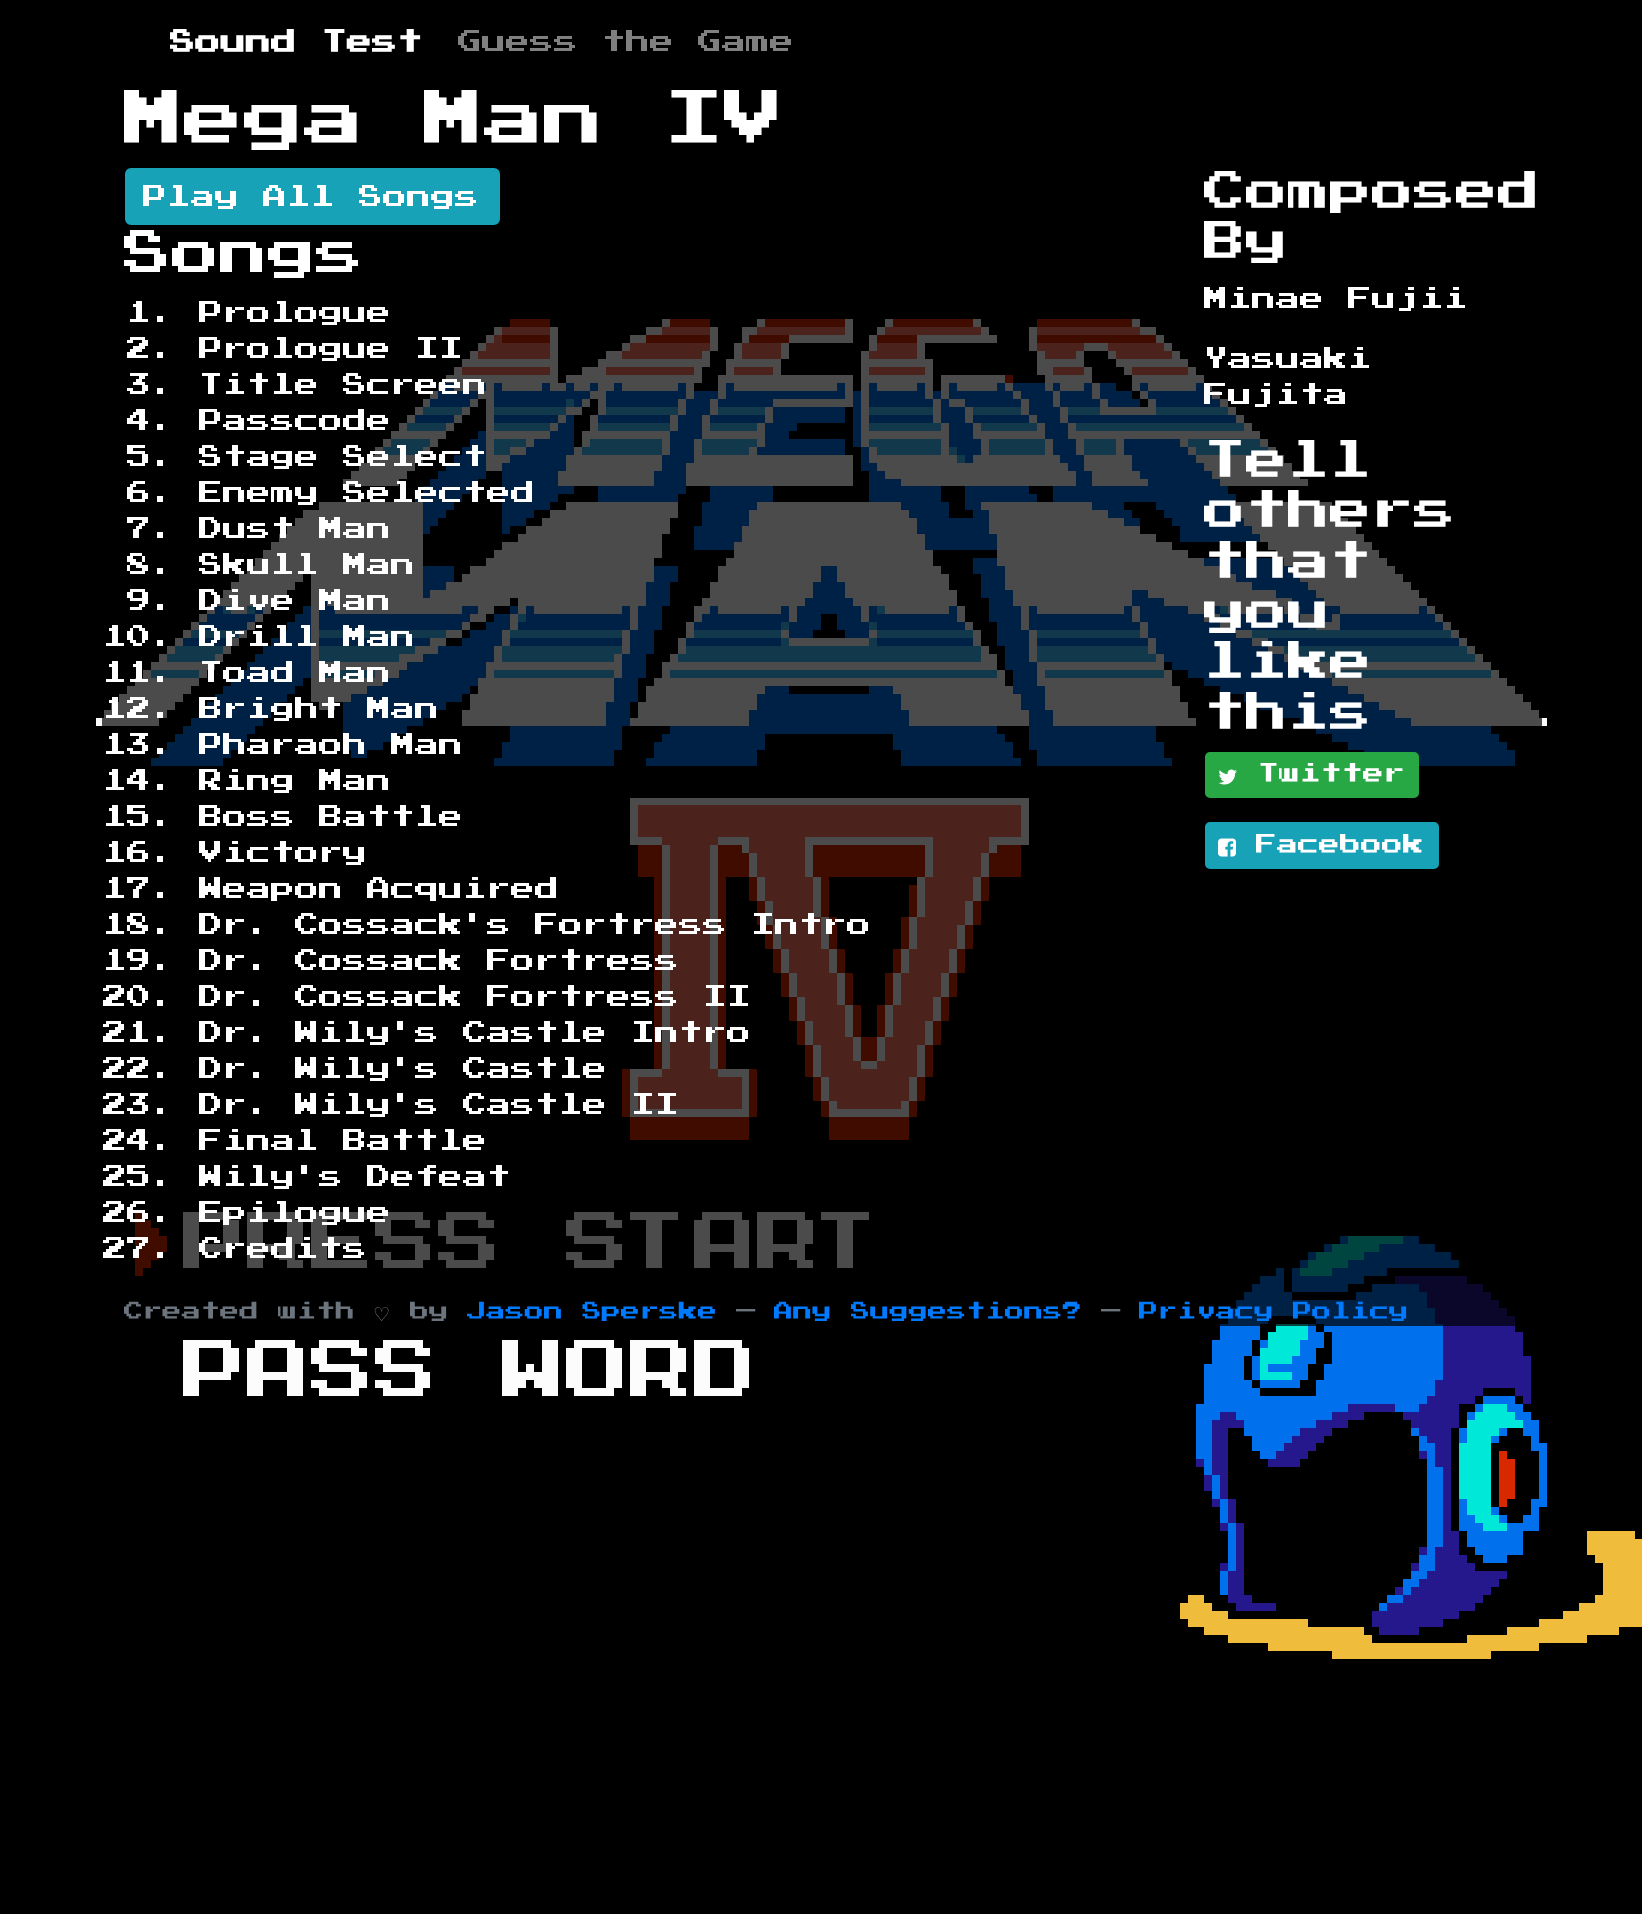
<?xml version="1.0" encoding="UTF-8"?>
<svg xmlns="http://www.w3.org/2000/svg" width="1642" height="1914">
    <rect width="100%" height="100%" fill="#000000"/>
    <image x="96" y="1395" width="1546" height="264" href="img_01.png"/>
    <image x="96" y="319" width="1451" height="1076" href="img_02.png"/>
    <text x="170" y="55" font-family="'Press Start 2P'" font-size="25.25" font-weight="700" fill="#FFFFFF">Sound Test</text>
    <text x="458" y="54" font-family="'Press Start 2P'" font-size="24" font-weight="500" fill="#808080">Guess the Game</text>
    <rect x="102" y="319" width="1440" height="971" fill="#000000" fill-opacity="0.7"/>
    <text x="124" y="150" font-family="'Press Start 2P'" font-size="60" font-weight="500" fill="#FFFFFF">Mega Man IV</text>
    <rect x="126" y="169" width="373" height="55" rx="5" fill="#17A2B8" stroke="#17A2B8" stroke-width="2"/>
    <text x="143" y="209" font-family="'Press Start 2P'" font-size="24" font-weight="500" fill="#FFFFFF">Play All Songs</text>
    <text x="124" y="278" font-family="'Press Start 2P'" font-size="48" font-weight="500" fill="#FFFFFF">Songs</text>
    <text font-family="'Press Start 2P'" font-size="24" font-weight="500" fill="#FFFFFF">
        <tspan x="127" y="325">1. Prologue</tspan>
        <tspan x="127" y="361">2. Prologue II</tspan>
        <tspan x="127" y="397">3. Title Screen</tspan>
        <tspan x="127" y="433">4. Passcode</tspan>
        <tspan x="127" y="469">5. Stage Select</tspan>
        <tspan x="127" y="505">6. Enemy Selected</tspan>
        <tspan x="127" y="541">7. Dust Man</tspan>
        <tspan x="127" y="577">8. Skull Man</tspan>
        <tspan x="127" y="613">9. Dive Man</tspan>
    </text>
    <text font-family="'Press Start 2P'" font-size="24" font-weight="500" fill="#FFFFFF">
        <tspan x="103" y="649">10. Drill Man</tspan>
        <tspan x="103" y="685">11. Toad Man</tspan>
        <tspan x="103" y="721">12. Bright Man</tspan>
        <tspan x="103" y="757">13. Pharaoh Man</tspan>
        <tspan x="103" y="793">14. Ring Man</tspan>
        <tspan x="103" y="829">15. Boss Battle</tspan>
        <tspan x="103" y="865">16. Victory</tspan>
        <tspan x="103" y="901">17. Weapon Acquired</tspan>
        <tspan x="103" y="937">18. Dr. Cossack's Fortress Intro</tspan>
        <tspan x="103" y="973">19. Dr. Cossack Fortress</tspan>
        <tspan x="103" y="1009">20. Dr. Cossack Fortress II</tspan>
        <tspan x="103" y="1045">21. Dr. Wily's Castle Intro</tspan>
        <tspan x="103" y="1081">22. Dr. Wily's Castle</tspan>
        <tspan x="103" y="1117">23. Dr. Wily's Castle II</tspan>
        <tspan x="103" y="1153">24. Final Battle</tspan>
        <tspan x="103" y="1189">25. Wily's Defeat</tspan>
        <tspan x="103" y="1225">26. Epilogue</tspan>
        <tspan x="103" y="1261">27. Credits</tspan>
    </text>
    <text font-family="'Press Start 2P'" font-size="42" font-weight="500" fill="#FFFFFF">
        <tspan x="1204" y="213">Composed</tspan>
        <tspan x="1204" y="263">By</tspan>
    </text>
    <text x="1204" y="311" font-family="'Press Start 2P'" font-size="24" font-weight="500" fill="#FFFFFF">Minae Fujii</text>
    <text font-family="'Press Start 2P'" font-size="24" font-weight="500" fill="#FFFFFF">
        <tspan x="1204" y="371">Yasuaki</tspan>
        <tspan x="1204" y="407">Fujita</tspan>
    </text>
    <text font-family="'Press Start 2P'" font-size="42" font-weight="500" fill="#FFFFFF">
        <tspan x="1204" y="482">Tell</tspan>
        <tspan x="1204" y="532">others</tspan>
        <tspan x="1204" y="583">that</tspan>
        <tspan x="1204" y="633">you</tspan>
        <tspan x="1204" y="683">like</tspan>
        <tspan x="1204" y="734">this</tspan>
    </text>
    <rect x="1206" y="753" width="212" height="44" rx="4" fill="#28A745" stroke="#28A745" stroke-width="2"/>
    <image x="1218" y="769" width="19" height="16" href="img_03.png"/>
    <text x="1258" y="784" font-family="'Press Start 2P'" font-size="21" font-weight="500" fill="#FFFFFF">Twitter</text>
    <rect x="1206" y="823" width="232" height="45" rx="4" fill="#17A2B8" stroke="#17A2B8" stroke-width="2"/>
    <image x="1218" y="838" width="18" height="19" href="img_04.png"/>
    <text x="1256" y="855" font-family="'Press Start 2P'" font-size="21" font-weight="500" fill="#FFFFFF">Facebook</text>
    <rect x="1220" y="1290" width="295" height="36" fill="#000000" fill-opacity="0.7"/>
    <text x="124" y="1321" font-family="'Press Start 2P'" font-size="19.25" font-weight="500" fill="#6C757D">Created with</text>
    <text x="373" y="1321" font-family="DejaVu Sans" font-size="19.25" fill="#6C757D">♡</text>
    <text x="410" y="1321" font-family="'Press Start 2P'" font-size="19.25" font-weight="500" fill="#6C757D">by</text>
    <text x="467" y="1321" font-family="'Press Start 2P'" font-size="19.25" font-weight="500" fill="#007BFF">Jason Sperske</text>
    <text x="736" y="1321" font-family="'Press Start 2P'" font-size="19.25" font-weight="500" fill="#6C757D">—</text>
    <text x="774" y="1321" font-family="'Press Start 2P'" font-size="19.25" font-weight="500" fill="#007BFF">Any Suggestions?</text>
    <text x="1101" y="1321" font-family="'Press Start 2P'" font-size="19.25" font-weight="500" fill="#6C757D">—</text>
    <text x="1139" y="1321" font-family="'Press Start 2P'" font-size="19.25" font-weight="500" fill="#007BFF">Privacy Policy</text>
</svg>
